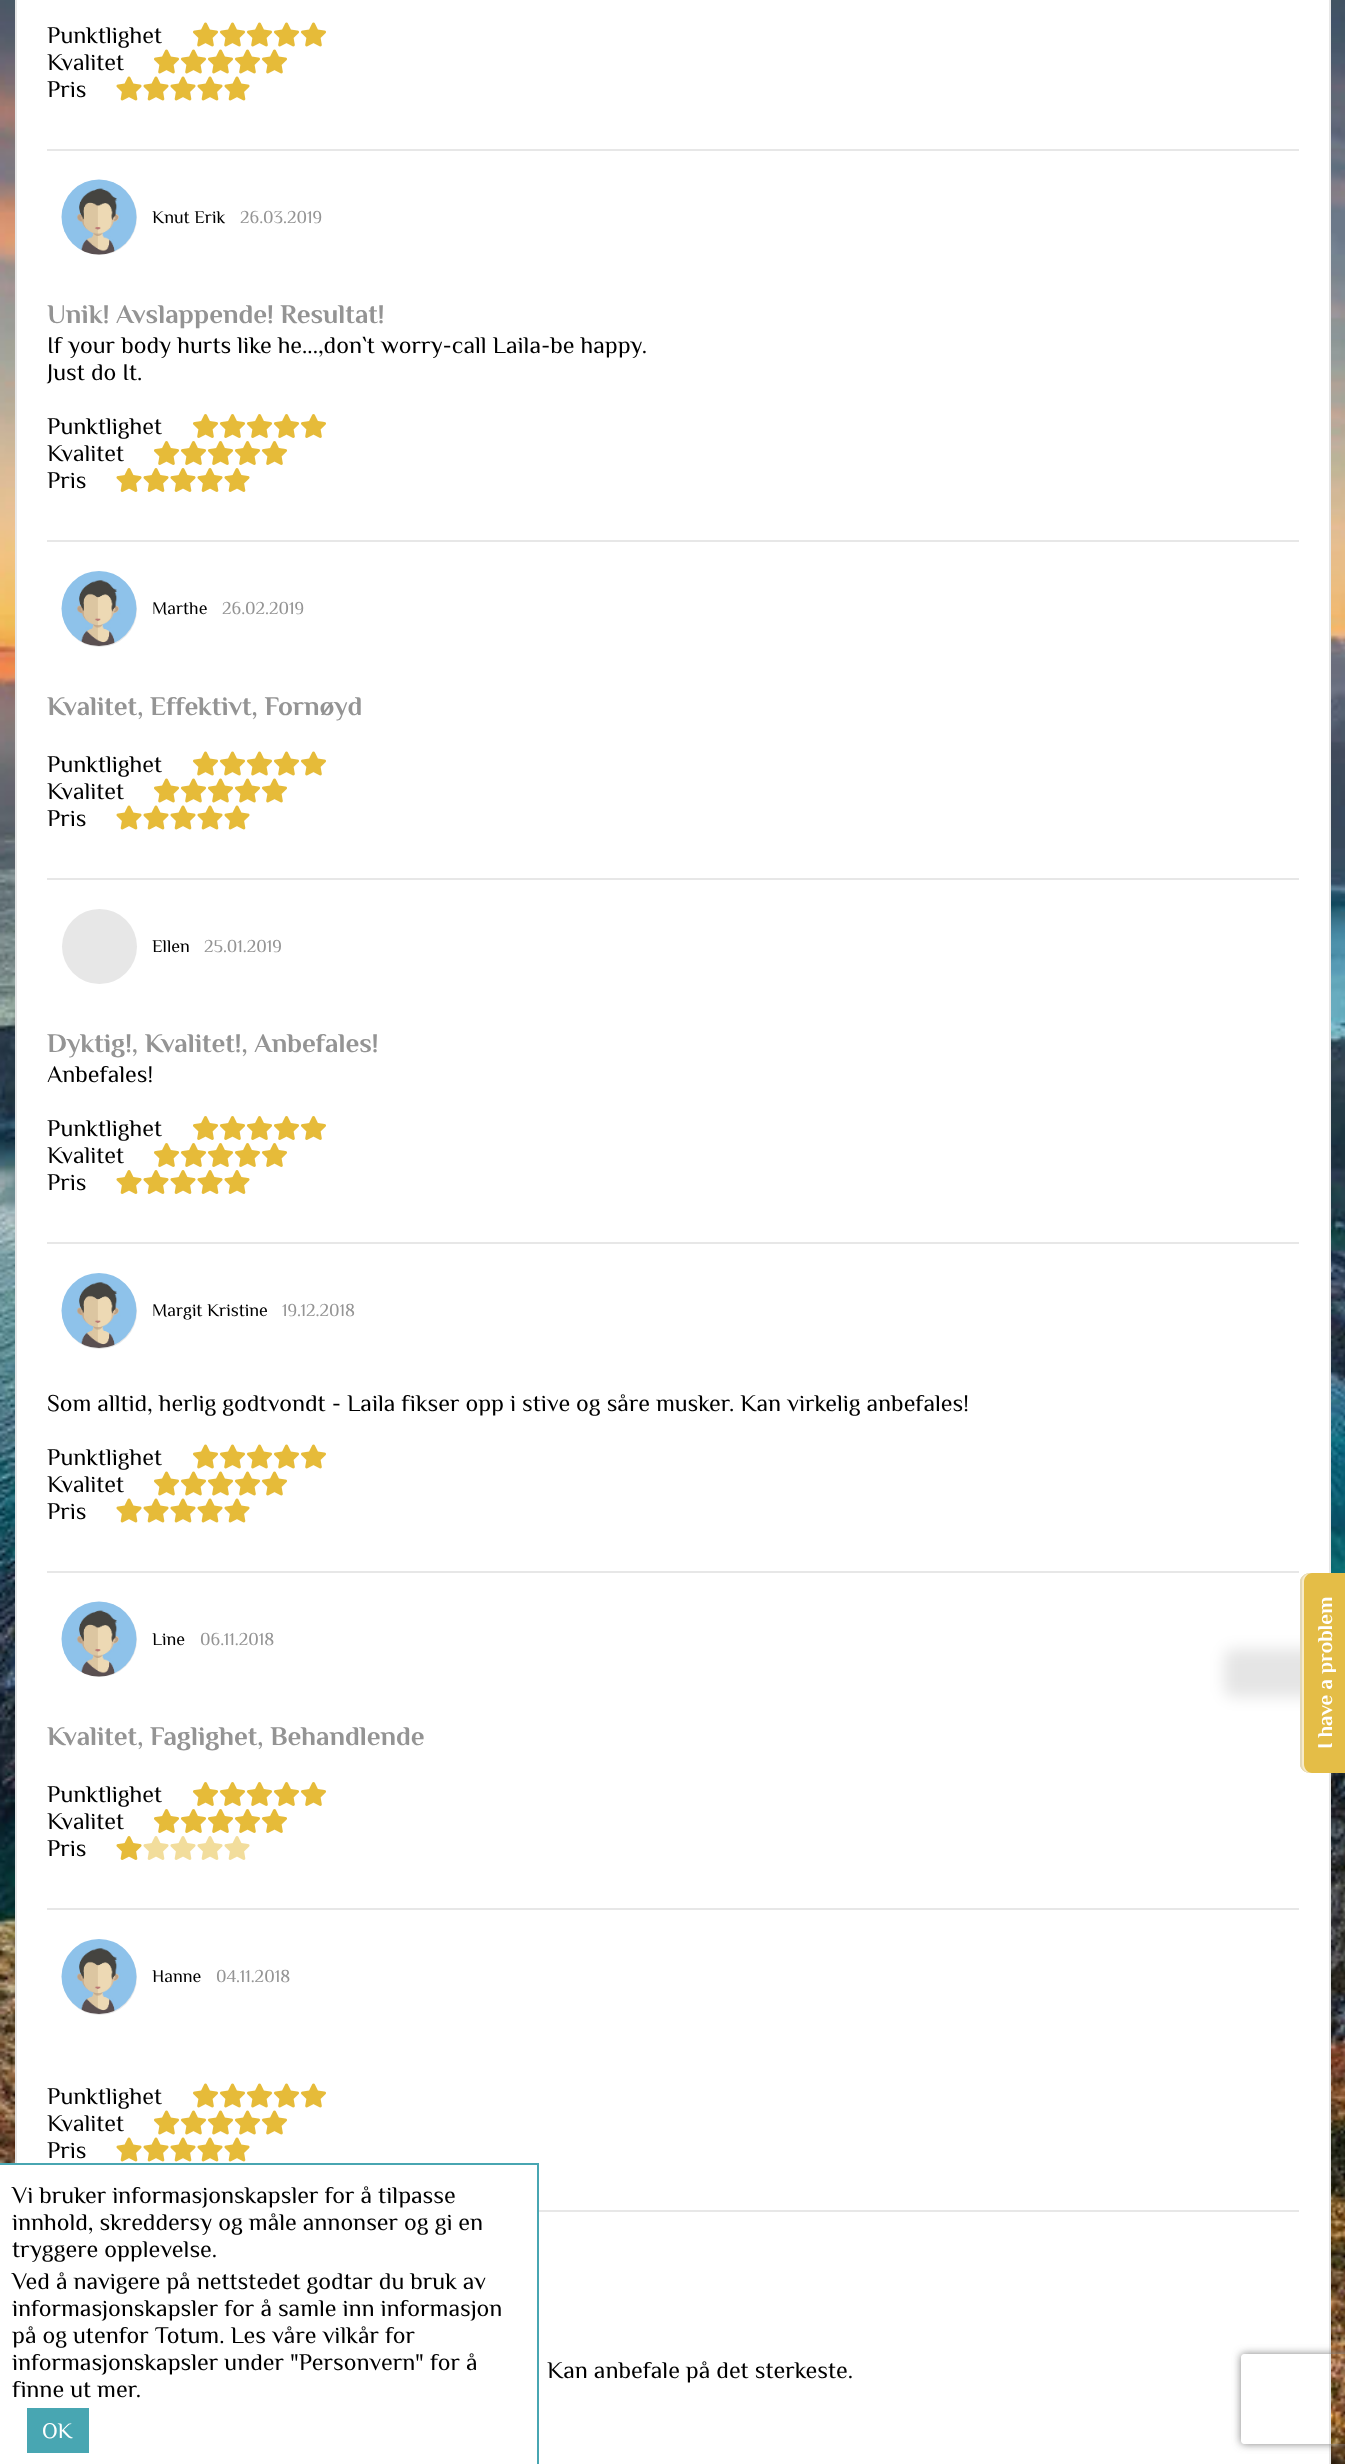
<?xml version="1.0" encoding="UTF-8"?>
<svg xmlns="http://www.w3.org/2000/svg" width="1345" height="2464">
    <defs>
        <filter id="blur1" x="-50%" y="-200%" width="200%" height="500%"><feGaussianBlur stdDeviation="7.5"/></filter>
        <clipPath id="clip1"><path d="M 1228 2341 H 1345 V 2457 H 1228 Z M 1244 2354 H 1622 C 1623.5 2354 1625 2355.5 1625 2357 V 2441 C 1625 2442.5 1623.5 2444 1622 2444 H 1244 C 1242.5 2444 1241 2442.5 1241 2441 V 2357 C 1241 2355.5 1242.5 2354 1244 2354 Z" clip-rule="evenodd"/></clipPath>
        <filter id="blur2" x="-50%" y="-200%" width="200%" height="500%"><feGaussianBlur stdDeviation="4"/></filter>
    </defs>
    <rect width="100%" height="100%" fill="#FFFFFF"/>
    <image x="0" y="0" width="1345" height="2464" href="img_01.png"/>
    <rect x="16" y="-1" width="1314" height="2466" fill="#FFFFFF" stroke="#E7E7E7" stroke-width="2"/>
    <rect x="47" y="149" width="1252" height="2" fill="#E7E7E7"/>
    <text x="47" y="43" font-family="Philosopher" font-size="24" fill="#000000">Punktlighet</text>
    <image x="193" y="22" width="25" height="25" href="img_02.png"/>
    <image x="220" y="22" width="25" height="25" href="img_02.png"/>
    <image x="247" y="22" width="25" height="25" href="img_02.png"/>
    <image x="274" y="22" width="25" height="25" href="img_02.png"/>
    <image x="301" y="22" width="25" height="25" href="img_02.png"/>
    <text x="47" y="70" font-family="Philosopher" font-size="24" fill="#000000">Kvalitet</text>
    <image x="154" y="49" width="25" height="25" href="img_02.png"/>
    <image x="181" y="49" width="25" height="25" href="img_02.png"/>
    <image x="208" y="49" width="25" height="25" href="img_02.png"/>
    <image x="235" y="49" width="25" height="25" href="img_02.png"/>
    <image x="262" y="49" width="25" height="25" href="img_02.png"/>
    <text x="47" y="97" font-family="Philosopher" font-size="24" fill="#000000">Pris</text>
    <image x="116" y="76" width="26" height="25" href="img_03.png"/>
    <image x="143" y="76" width="26" height="25" href="img_03.png"/>
    <image x="170" y="76" width="26" height="25" href="img_03.png"/>
    <image x="197" y="76" width="26" height="25" href="img_03.png"/>
    <image x="224" y="76" width="26" height="25" href="img_03.png"/>
    <rect x="47" y="540" width="1252" height="2" fill="#E7E7E7"/>
    <circle cx="99.5" cy="217.5" r="37.5" fill="#E7E7E7"/>
    <image x="61" y="179" width="76" height="76" href="img_04.png"/>
    <text x="152" y="223" font-family="Philosopher" font-size="18" fill="#000000">Knut Erik</text>
    <text x="240" y="223" font-family="Philosopher" font-size="18" fill="#949494">26.03.2019</text>
    <text x="47" y="323" font-family="Philosopher" font-size="27" font-weight="700" fill="#949494">Unik! Avslappende! Resultat!</text>
    <text font-family="Philosopher" font-size="24" fill="#000000">
        <tspan x="47" y="353">If your body hurts like he...,don`t worry-call Laila-be happy.</tspan>
        <tspan x="47" y="380">Just do It.</tspan>
    </text>
    <text x="47" y="434" font-family="Philosopher" font-size="24" fill="#000000">Punktlighet</text>
    <image x="193" y="414" width="25" height="24" href="img_05.png"/>
    <image x="220" y="414" width="25" height="24" href="img_05.png"/>
    <image x="247" y="414" width="25" height="24" href="img_05.png"/>
    <image x="274" y="414" width="25" height="24" href="img_05.png"/>
    <image x="301" y="414" width="25" height="24" href="img_05.png"/>
    <text x="47" y="461" font-family="Philosopher" font-size="24" fill="#000000">Kvalitet</text>
    <image x="154" y="441" width="25" height="24" href="img_05.png"/>
    <image x="181" y="441" width="25" height="24" href="img_05.png"/>
    <image x="208" y="441" width="25" height="24" href="img_05.png"/>
    <image x="235" y="441" width="25" height="24" href="img_05.png"/>
    <image x="262" y="441" width="25" height="24" href="img_05.png"/>
    <text x="47" y="488" font-family="Philosopher" font-size="24" fill="#000000">Pris</text>
    <image x="116" y="468" width="26" height="24" href="img_06.png"/>
    <image x="143" y="468" width="26" height="24" href="img_06.png"/>
    <image x="170" y="468" width="26" height="24" href="img_06.png"/>
    <image x="197" y="468" width="26" height="24" href="img_06.png"/>
    <image x="224" y="468" width="26" height="24" href="img_06.png"/>
    <rect x="47" y="878" width="1252" height="2" fill="#E7E7E7"/>
    <circle cx="99.5" cy="609.5" r="37.5" fill="#E7E7E7"/>
    <image x="61" y="571" width="76" height="75" href="img_07.png"/>
    <text x="152" y="614" font-family="Philosopher" font-size="18" fill="#000000">Marthe</text>
    <text x="222" y="614" font-family="Philosopher" font-size="18" fill="#949494">26.02.2019</text>
    <text x="47" y="715" font-family="Philosopher" font-size="27" font-weight="700" fill="#949494">Kvalitet, Effektivt, Fornøyd</text>
    <text x="47" y="772" font-family="Philosopher" font-size="24" fill="#000000">Punktlighet</text>
    <image x="193" y="751" width="25" height="25" href="img_02.png"/>
    <image x="220" y="751" width="25" height="25" href="img_02.png"/>
    <image x="247" y="751" width="25" height="25" href="img_02.png"/>
    <image x="274" y="751" width="25" height="25" href="img_02.png"/>
    <image x="301" y="751" width="25" height="25" href="img_02.png"/>
    <text x="47" y="799" font-family="Philosopher" font-size="24" fill="#000000">Kvalitet</text>
    <image x="154" y="778" width="25" height="25" href="img_02.png"/>
    <image x="181" y="778" width="25" height="25" href="img_02.png"/>
    <image x="208" y="778" width="25" height="25" href="img_02.png"/>
    <image x="235" y="778" width="25" height="25" href="img_02.png"/>
    <image x="262" y="778" width="25" height="25" href="img_02.png"/>
    <text x="47" y="826" font-family="Philosopher" font-size="24" fill="#000000">Pris</text>
    <image x="116" y="805" width="26" height="25" href="img_03.png"/>
    <image x="143" y="805" width="26" height="25" href="img_03.png"/>
    <image x="170" y="805" width="26" height="25" href="img_03.png"/>
    <image x="197" y="805" width="26" height="25" href="img_03.png"/>
    <image x="224" y="805" width="26" height="25" href="img_03.png"/>
    <rect x="47" y="1242" width="1252" height="2" fill="#E7E7E7"/>
    <circle cx="99.5" cy="946.5" r="37.5" fill="#E7E7E7"/>
    <text x="152" y="952" font-family="Philosopher" font-size="18" fill="#000000">Ellen</text>
    <text x="204" y="952" font-family="Philosopher" font-size="18" fill="#949494">25.01.2019</text>
    <text x="47" y="1052" font-family="Philosopher" font-size="27" font-weight="700" fill="#949494">Dyktig!, Kvalitet!, Anbefales!</text>
    <text x="47" y="1082" font-family="Philosopher" font-size="24" fill="#000000">Anbefales!</text>
    <text x="47" y="1136" font-family="Philosopher" font-size="24" fill="#000000">Punktlighet</text>
    <image x="193" y="1116" width="25" height="24" href="img_05.png"/>
    <image x="220" y="1116" width="25" height="24" href="img_05.png"/>
    <image x="247" y="1116" width="25" height="24" href="img_05.png"/>
    <image x="274" y="1116" width="25" height="24" href="img_05.png"/>
    <image x="301" y="1116" width="25" height="24" href="img_05.png"/>
    <text x="47" y="1163" font-family="Philosopher" font-size="24" fill="#000000">Kvalitet</text>
    <image x="154" y="1143" width="25" height="24" href="img_05.png"/>
    <image x="181" y="1143" width="25" height="24" href="img_05.png"/>
    <image x="208" y="1143" width="25" height="24" href="img_05.png"/>
    <image x="235" y="1143" width="25" height="24" href="img_05.png"/>
    <image x="262" y="1143" width="25" height="24" href="img_05.png"/>
    <text x="47" y="1190" font-family="Philosopher" font-size="24" fill="#000000">Pris</text>
    <image x="116" y="1170" width="26" height="24" href="img_06.png"/>
    <image x="143" y="1170" width="26" height="24" href="img_06.png"/>
    <image x="170" y="1170" width="26" height="24" href="img_06.png"/>
    <image x="197" y="1170" width="26" height="24" href="img_06.png"/>
    <image x="224" y="1170" width="26" height="24" href="img_06.png"/>
    <rect x="47" y="1571" width="1252" height="2" fill="#E7E7E7"/>
    <circle cx="99.5" cy="1311.5" r="37.5" fill="#E7E7E7"/>
    <image x="61" y="1273" width="76" height="75" href="img_07.png"/>
    <text x="152" y="1316" font-family="Philosopher" font-size="18" fill="#000000">Margit Kristine</text>
    <text x="282" y="1316" font-family="Philosopher" font-size="18" fill="#949494">19.12.2018</text>
    <text x="47" y="1411" font-family="Philosopher" font-size="24" fill="#000000">Som alltid, herlig godtvondt - Laila fikser opp i stive og såre musker. Kan virkelig anbefales!</text>
    <text x="47" y="1465" font-family="Philosopher" font-size="24" fill="#000000">Punktlighet</text>
    <image x="193" y="1444" width="25" height="25" href="img_02.png"/>
    <image x="220" y="1444" width="25" height="25" href="img_02.png"/>
    <image x="247" y="1444" width="25" height="25" href="img_02.png"/>
    <image x="274" y="1444" width="25" height="25" href="img_02.png"/>
    <image x="301" y="1444" width="25" height="25" href="img_02.png"/>
    <text x="47" y="1492" font-family="Philosopher" font-size="24" fill="#000000">Kvalitet</text>
    <image x="154" y="1471" width="25" height="25" href="img_02.png"/>
    <image x="181" y="1471" width="25" height="25" href="img_02.png"/>
    <image x="208" y="1471" width="25" height="25" href="img_02.png"/>
    <image x="235" y="1471" width="25" height="25" href="img_02.png"/>
    <image x="262" y="1471" width="25" height="25" href="img_02.png"/>
    <text x="47" y="1519" font-family="Philosopher" font-size="24" fill="#000000">Pris</text>
    <image x="116" y="1498" width="26" height="25" href="img_03.png"/>
    <image x="143" y="1498" width="26" height="25" href="img_03.png"/>
    <image x="170" y="1498" width="26" height="25" href="img_03.png"/>
    <image x="197" y="1498" width="26" height="25" href="img_03.png"/>
    <image x="224" y="1498" width="26" height="25" href="img_03.png"/>
    <rect x="47" y="1908" width="1252" height="2" fill="#E7E7E7"/>
    <circle cx="99.5" cy="1639.5" r="37.5" fill="#E7E7E7"/>
    <image x="61" y="1601" width="76" height="76" href="img_04.png"/>
    <text x="152" y="1645" font-family="Philosopher" font-size="18" fill="#000000">Line</text>
    <text x="200" y="1645" font-family="Philosopher" font-size="18" fill="#949494">06.11.2018</text>
    <text x="47" y="1745" font-family="Philosopher" font-size="27" font-weight="700" fill="#949494">Kvalitet, Faglighet, Behandlende</text>
    <text x="47" y="1802" font-family="Philosopher" font-size="24" fill="#000000">Punktlighet</text>
    <image x="193" y="1782" width="25" height="24" href="img_05.png"/>
    <image x="220" y="1782" width="25" height="24" href="img_05.png"/>
    <image x="247" y="1782" width="25" height="24" href="img_05.png"/>
    <image x="274" y="1782" width="25" height="24" href="img_05.png"/>
    <image x="301" y="1782" width="25" height="24" href="img_05.png"/>
    <text x="47" y="1829" font-family="Philosopher" font-size="24" fill="#000000">Kvalitet</text>
    <image x="154" y="1809" width="25" height="24" href="img_05.png"/>
    <image x="181" y="1809" width="25" height="24" href="img_05.png"/>
    <image x="208" y="1809" width="25" height="24" href="img_05.png"/>
    <image x="235" y="1809" width="25" height="24" href="img_05.png"/>
    <image x="262" y="1809" width="25" height="24" href="img_05.png"/>
    <text x="47" y="1856" font-family="Philosopher" font-size="24" fill="#000000">Pris</text>
    <image x="116" y="1836" width="26" height="24" href="img_06.png"/>
    <image x="143" y="1836" width="26" height="24" href="img_08.png"/>
    <image x="170" y="1836" width="26" height="24" href="img_08.png"/>
    <image x="197" y="1836" width="26" height="24" href="img_08.png"/>
    <image x="224" y="1836" width="26" height="24" href="img_08.png"/>
    <rect x="539" y="2210" width="760" height="2" fill="#E7E7E7"/>
    <circle cx="99.5" cy="1977.5" r="37.5" fill="#E7E7E7"/>
    <image x="61" y="1939" width="76" height="75" href="img_09.png"/>
    <text x="152" y="1982" font-family="Philosopher" font-size="18" fill="#000000">Hanne</text>
    <text x="216" y="1982" font-family="Philosopher" font-size="18" fill="#949494">04.11.2018</text>
    <text x="47" y="2104" font-family="Philosopher" font-size="24" fill="#000000">Punktlighet</text>
    <image x="193" y="2083" width="25" height="25" href="img_02.png"/>
    <image x="220" y="2083" width="25" height="25" href="img_02.png"/>
    <image x="247" y="2083" width="25" height="25" href="img_02.png"/>
    <image x="274" y="2083" width="25" height="25" href="img_02.png"/>
    <image x="301" y="2083" width="25" height="25" href="img_02.png"/>
    <text x="47" y="2131" font-family="Philosopher" font-size="24" fill="#000000">Kvalitet</text>
    <image x="154" y="2110" width="25" height="25" href="img_02.png"/>
    <image x="181" y="2110" width="25" height="25" href="img_02.png"/>
    <image x="208" y="2110" width="25" height="25" href="img_02.png"/>
    <image x="235" y="2110" width="25" height="25" href="img_02.png"/>
    <image x="262" y="2110" width="25" height="25" href="img_02.png"/>
    <text x="47" y="2158" font-family="Philosopher" font-size="24" fill="#000000">Pris</text>
    <image x="116" y="2137" width="26" height="25" href="img_03.png"/>
    <image x="143" y="2137" width="26" height="25" href="img_03.png"/>
    <image x="170" y="2137" width="26" height="25" href="img_03.png"/>
    <image x="197" y="2137" width="26" height="25" href="img_03.png"/>
    <image x="224" y="2137" width="26" height="25" href="img_03.png"/>
    <text x="547" y="2378" font-family="Philosopher" font-size="24" fill="#000000">Kan anbefale på det sterkeste.</text>
    <rect x="1224" y="1649" width="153" height="48" rx="9" fill="#000000" fill-opacity="0.1" filter="url(#blur1)"/>
    <path d="M 1300 1764 V 1582 C 1300 1577 1305 1573 1310 1573 H 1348 V 1773 H 1310 C 1305 1773 1300 1769 1300 1764 Z" fill="#E4BD47"/>
    <path d="M 1304 1764 V 1582 C 1304 1577 1308 1573 1312 1573 H 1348 H 1310 C 1305 1573 1300 1577 1300 1582 V 1764 C 1300 1769 1305 1773 1310 1773 H 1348 H 1312 C 1308 1773 1304 1769 1304 1764 Z" fill="#FFFFFF" fill-opacity="0.7"/>
    <path d="M 1302 1764 V 1582 C 1302 1577 1306 1573 1311 1573 H 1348 H 1310 C 1305 1573 1300 1577 1300 1582 V 1764 C 1300 1769 1305 1773 1310 1773 H 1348 H 1311 C 1306 1773 1302 1769 1302 1764 Z" fill="#000000" fill-opacity="0.08"/>
    <text x="1332" y="1749" transform="rotate(-90 1332 1749)" font-family="Philosopher" font-size="21" font-weight="700" fill="#FFFFFF">I have a problem</text>
    <rect x="0" y="2165" width="17" height="299" fill="#FFFFFF"/>
    <rect x="0" y="2163" width="539" height="2" fill="#48A6B2"/>
    <rect x="537" y="2163" width="2" height="301" fill="#48A6B2"/>
    <text font-family="Philosopher" font-size="24" fill="#000000">
        <tspan x="12" y="2203">Vi bruker informasjonskapsler for å tilpasse</tspan>
        <tspan x="12" y="2230">innhold, skreddersy og måle annonser og gi en</tspan>
        <tspan x="12" y="2257">tryggere opplevelse.</tspan>
        <tspan x="12" y="2289">Ved å navigere på nettstedet godtar du bruk av</tspan>
        <tspan x="12" y="2316">informasjonskapsler for å samle inn informasjon</tspan>
        <tspan x="12" y="2343">på og utenfor Totum. Les våre vilkår for</tspan>
        <tspan x="12" y="2370">informasjonskapsler under "Personvern" for å</tspan>
        <tspan x="12" y="2397">finne ut mer.</tspan>
    </text>
    <rect x="27" y="2408" width="62" height="45" fill="#48A6B2"/>
    <text x="42" y="2438" font-family="Philosopher" font-size="22" fill="#FFFFFF">OK</text>
    <g clip-path="url(#clip1)">
        <rect x="1241" y="2354" width="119" height="90" rx="3" fill="#808080" filter="url(#blur2)"/>
    </g>
</svg>
